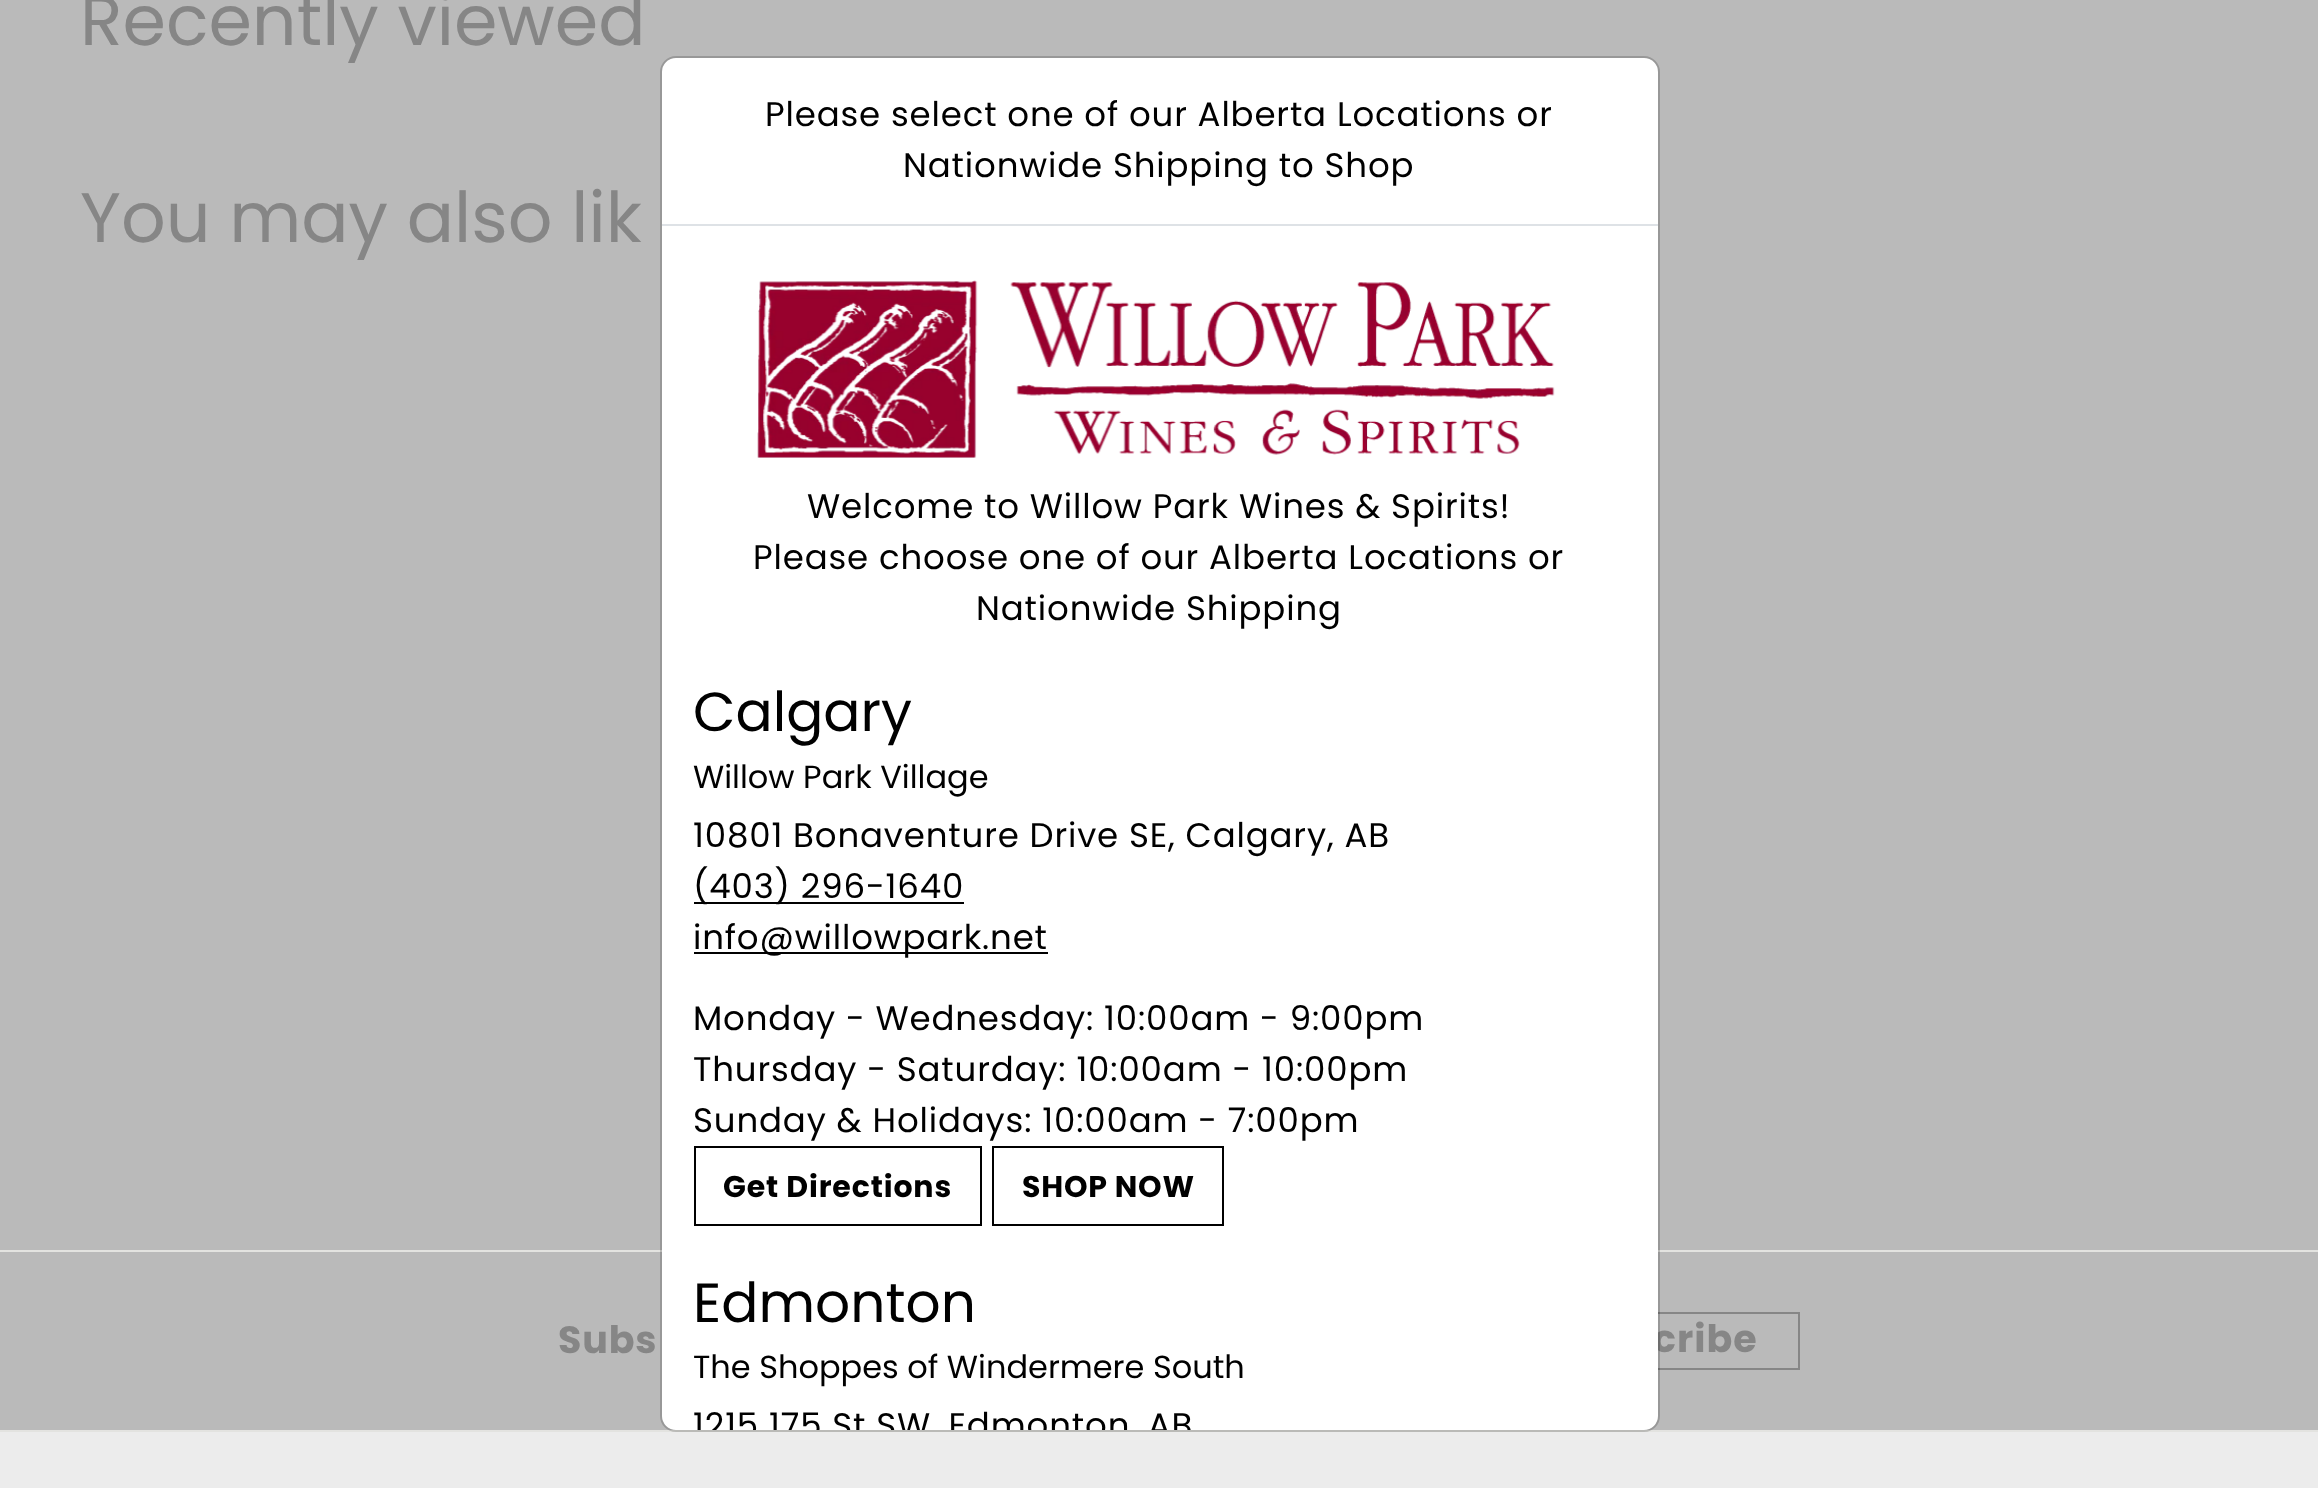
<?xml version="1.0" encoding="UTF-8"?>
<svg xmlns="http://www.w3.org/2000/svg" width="2318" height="1488">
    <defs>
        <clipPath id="clip1"><rect x="662" y="58" width="996" height="1372" rx="14"/></clipPath>
    </defs>
    <rect width="100%" height="100%" fill="#BABABA"/>
    <text x="80" y="45" font-family="Poppins" font-size="70" fill="#868686">Recently viewed</text>
    <text x="80" y="242" font-family="Poppins" font-size="70" fill="#868686">You may also lik</text>
    <rect x="0" y="1250" width="2318" height="2" fill="#E3E3E0"/>
    <rect x="1513" y="1313" width="286" height="56" fill="none" stroke="#868686" stroke-width="2"/>
    <text x="1653" y="1352" font-family="Poppins" font-size="38" font-weight="700" letter-spacing="1" fill="#868686">cribe</text>
    <rect x="662" y="58" width="996" height="1372" rx="14" fill="#FFFFFF"/>
    <rect x="0" y="1430" width="2318" height="2" fill="#E3E3E0"/>
    <rect x="661" y="57" width="998" height="1374" rx="15" fill="none" stroke="#000000" stroke-opacity="0.18" stroke-width="2"/>
    <rect x="662" y="224" width="996" height="2" fill="#DEE2E6"/>
    <text x="765" y="126" font-family="Poppins" font-size="34" letter-spacing="0.85" fill="#000000">Please select one of our Alberta Locations or</text>
    <text x="903" y="177" font-family="Poppins" font-size="34" letter-spacing="0.85" fill="#000000">Nationwide Shipping to Shop</text>
    <image x="757" y="280" width="798" height="178" href="img_01.png"/>
    <text x="807" y="518" font-family="Poppins" font-size="34" letter-spacing="0.85" fill="#000000">Welcome to Willow Park Wines &amp; Spirits!</text>
    <text x="753" y="569" font-family="Poppins" font-size="34" letter-spacing="0.85" fill="#000000">Please choose one of our Alberta Locations or</text>
    <text x="976" y="620" font-family="Poppins" font-size="34" letter-spacing="0.85" fill="#000000">Nationwide Shipping</text>
    <text x="693" y="731" font-family="Poppins" font-size="55" fill="#000000">Calgary</text>
    <text x="693" y="788" font-family="Poppins" font-size="32" fill="#000000">Willow Park Village</text>
    <text x="693" y="847" font-family="Poppins" font-size="34" letter-spacing="0.85" fill="#000000">10801 Bonaventure Drive SE, Calgary, AB</text>
    <rect x="694" y="902" width="270" height="2" fill="#000000"/>
    <text x="693" y="898" font-family="Poppins" font-size="34" letter-spacing="0.85" fill="#000000">(403) 296-1640</text>
    <rect x="694" y="952" width="354" height="2" fill="#000000"/>
    <text x="693" y="949" font-family="Poppins" font-size="34" letter-spacing="0.85" fill="#000000">info@willowpark.net</text>
    <text font-family="Poppins" font-size="34" letter-spacing="0.85" fill="#000000">
        <tspan x="693" y="1030">Monday - Wednesday: 10:00am - 9:00pm</tspan>
        <tspan x="693" y="1081">Thursday - Saturday: 10:00am - 10:00pm</tspan>
        <tspan x="693" y="1132">Sunday &amp; Holidays: 10:00am - 7:00pm</tspan>
    </text>
    <rect x="695" y="1147" width="286" height="78" fill="none" stroke="#000000" stroke-width="2"/>
    <text x="723" y="1197" font-family="Poppins" font-size="30" font-weight="700" letter-spacing="0.85" fill="#000000">Get Directions</text>
    <rect x="993" y="1147" width="230" height="78" fill="none" stroke="#000000" stroke-width="2"/>
    <text x="1022" y="1197" font-family="Poppins" font-size="30" font-weight="700" letter-spacing="0.75" fill="#000000">SHOP NOW</text>
    <text x="693" y="1322" font-family="Poppins" font-size="55" fill="#000000">Edmonton</text>
    <text x="693" y="1378" font-family="Poppins" font-size="32" fill="#000000">The Shoppes of Windermere South</text>
    <g clip-path="url(#clip1)">
        <text x="693" y="1437" font-family="Poppins" font-size="34" letter-spacing="0.85" fill="#000000">1215 175 St SW, Edmonton, AB</text>
    </g>
    <text x="558" y="1353" font-family="Poppins" font-size="38" font-weight="700" letter-spacing="0.85" fill="#868686">Subs</text>
    <rect x="0" y="1432" width="2318" height="56" fill="#ECECEC"/>
</svg>
